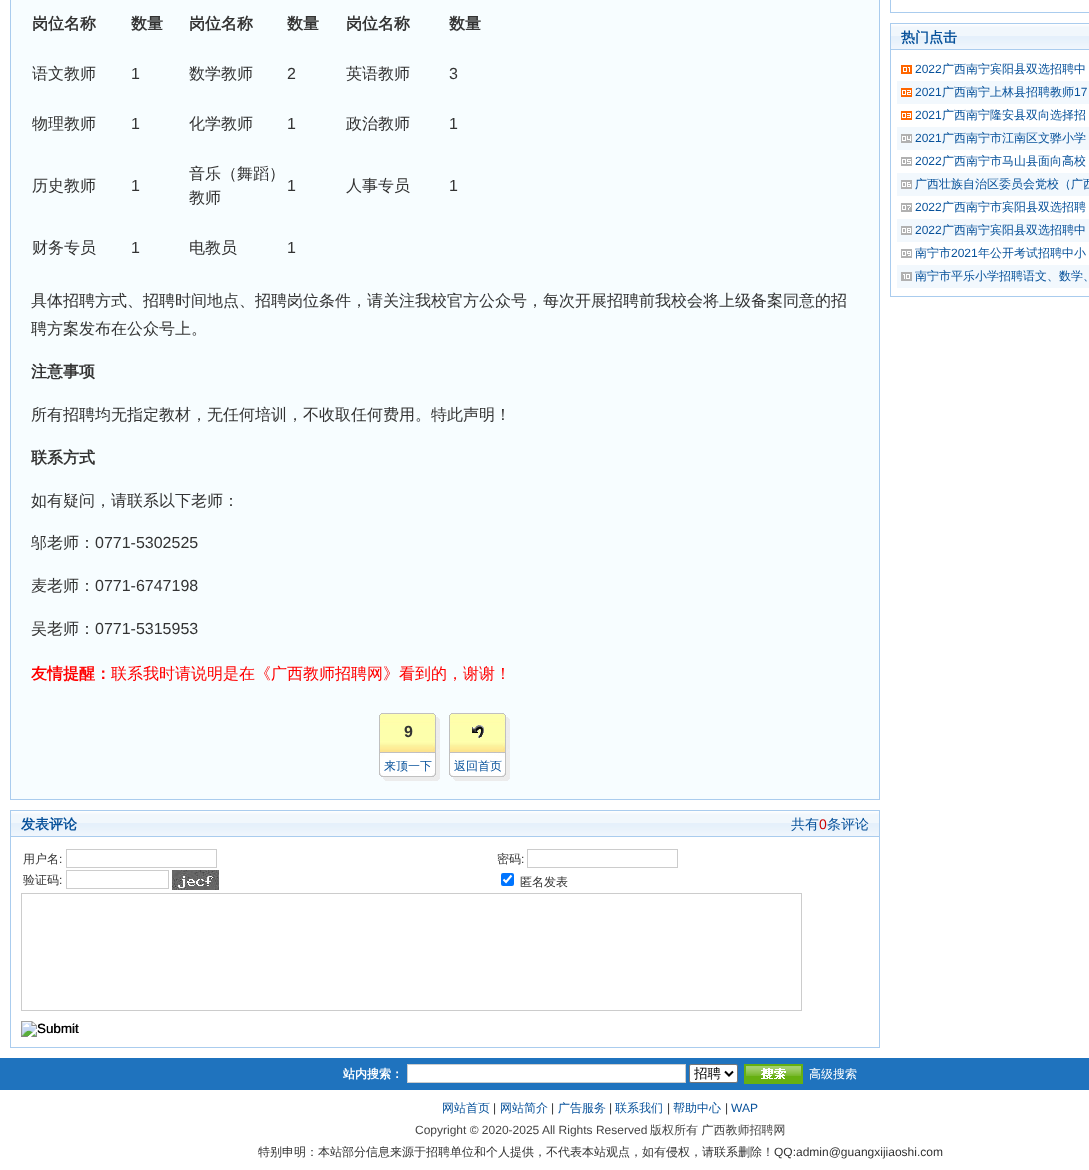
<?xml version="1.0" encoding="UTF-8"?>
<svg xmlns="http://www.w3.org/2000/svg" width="1089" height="1170">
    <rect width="100%" height="100%" fill="#FFFFFF"/>
    <rect x="10.5" y="-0.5" width="869" height="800" fill="#F7FDFF" stroke="#AACCEE"/>
    <text x="32" y="29" font-family="WenQuanYi Zen Hei" font-size="16" font-weight="700" fill="#333333">岗位名称</text>
    <text x="131" y="29" font-family="WenQuanYi Zen Hei" font-size="16" font-weight="700" fill="#333333">数量</text>
    <text x="189" y="29" font-family="WenQuanYi Zen Hei" font-size="16" font-weight="700" fill="#333333">岗位名称</text>
    <text x="287" y="29" font-family="WenQuanYi Zen Hei" font-size="16" font-weight="700" fill="#333333">数量</text>
    <text x="346" y="29" font-family="WenQuanYi Zen Hei" font-size="16" font-weight="700" fill="#333333">岗位名称</text>
    <text x="449" y="29" font-family="WenQuanYi Zen Hei" font-size="16" font-weight="700" fill="#333333">数量</text>
    <text x="32" y="79" font-family="WenQuanYi Zen Hei" font-size="16" font-weight="500" fill="#333333">语文教师</text>
    <text x="131" y="79" font-family="Liberation Sans" font-size="16" fill="#333333">1</text>
    <text x="189" y="79" font-family="WenQuanYi Zen Hei" font-size="16" font-weight="500" fill="#333333">数学教师</text>
    <text x="287" y="79" font-family="Liberation Sans" font-size="16" fill="#333333">2</text>
    <text x="346" y="79" font-family="WenQuanYi Zen Hei" font-size="16" font-weight="500" fill="#333333">英语教师</text>
    <text x="449" y="79" font-family="Liberation Sans" font-size="16" fill="#333333">3</text>
    <text x="32" y="129" font-family="WenQuanYi Zen Hei" font-size="16" font-weight="500" fill="#333333">物理教师</text>
    <text x="131" y="129" font-family="Liberation Sans" font-size="16" fill="#333333">1</text>
    <text x="189" y="129" font-family="WenQuanYi Zen Hei" font-size="16" font-weight="500" fill="#333333">化学教师</text>
    <text x="287" y="129" font-family="Liberation Sans" font-size="16" fill="#333333">1</text>
    <text x="346" y="129" font-family="WenQuanYi Zen Hei" font-size="16" font-weight="500" fill="#333333">政治教师</text>
    <text x="449" y="129" font-family="Liberation Sans" font-size="16" fill="#333333">1</text>
    <text x="32" y="191" font-family="WenQuanYi Zen Hei" font-size="16" font-weight="500" fill="#333333">历史教师</text>
    <text x="131" y="191" font-family="Liberation Sans" font-size="16" fill="#333333">1</text>
    <text font-family="WenQuanYi Zen Hei" font-size="16" font-weight="500" fill="#333333">
        <tspan x="189" y="179">音乐（舞蹈）</tspan>
        <tspan x="189" y="203">教师</tspan>
    </text>
    <text x="287" y="191" font-family="Liberation Sans" font-size="16" fill="#333333">1</text>
    <text x="346" y="191" font-family="WenQuanYi Zen Hei" font-size="16" font-weight="500" fill="#333333">人事专员</text>
    <text x="449" y="191" font-family="Liberation Sans" font-size="16" fill="#333333">1</text>
    <text x="32" y="253" font-family="WenQuanYi Zen Hei" font-size="16" font-weight="500" fill="#333333">财务专员</text>
    <text x="131" y="253" font-family="Liberation Sans" font-size="16" fill="#333333">1</text>
    <text x="189" y="253" font-family="WenQuanYi Zen Hei" font-size="16" font-weight="500" fill="#333333">电教员</text>
    <text x="287" y="253" font-family="Liberation Sans" font-size="16" fill="#333333">1</text>
    <text font-family="WenQuanYi Zen Hei" font-size="16" font-weight="500" fill="#333333">
        <tspan x="31" y="306">具体招聘方式、招聘时间地点、招聘岗位条件，请关注我校官方公众号，每次开展招聘前我校会将上级备案同意的招</tspan>
        <tspan x="31" y="334">聘方案发布在公众号上。</tspan>
    </text>
    <text x="31" y="377" font-family="WenQuanYi Zen Hei" font-size="16" font-weight="700" fill="#333333">注意事项</text>
    <text x="31" y="420" font-family="WenQuanYi Zen Hei" font-size="16" font-weight="500" fill="#333333">所有招聘均无指定教材，无任何培训，不收取任何费用。特此声明！</text>
    <text x="31" y="463" font-family="WenQuanYi Zen Hei" font-size="16" font-weight="700" fill="#333333">联系方式</text>
    <text x="31" y="506" font-family="WenQuanYi Zen Hei" font-size="16" font-weight="500" fill="#333333">如有疑问，请联系以下老师：</text>
    <text x="31" y="548" font-family="WenQuanYi Zen Hei" font-size="16" font-weight="500" fill="#333333">邬老师：</text>
    <text x="95" y="548" font-family="Liberation Sans" font-size="16" fill="#333333">0771-5302525</text>
    <text x="31" y="591" font-family="WenQuanYi Zen Hei" font-size="16" font-weight="500" fill="#333333">麦老师：</text>
    <text x="95" y="591" font-family="Liberation Sans" font-size="16" fill="#333333">0771-6747198</text>
    <text x="31" y="634" font-family="WenQuanYi Zen Hei" font-size="16" font-weight="500" fill="#333333">吴老师：</text>
    <text x="95" y="634" font-family="Liberation Sans" font-size="16" fill="#333333">0771-5315953</text>
    <text x="31" y="679" font-family="WenQuanYi Zen Hei" font-size="16" font-weight="700" fill="#FF0000">友情提醒：</text>
    <text x="111" y="679" font-family="WenQuanYi Zen Hei" font-size="16" font-weight="500" fill="#FF0000">联系我时请说明是在《广西教师招聘网》看到的，谢谢！</text>
    <image x="379" y="713" width="61" height="68" href="img_01.png"/>
    <text x="404" y="737" font-family="Liberation Sans" font-size="16" font-weight="700" fill="#333333">9</text>
    <text x="384" y="770" font-family="WenQuanYi Zen Hei" font-size="12" font-weight="500" fill="#07519A">来顶一下</text>
    <image x="449" y="713" width="61" height="68" href="img_01.png"/>
    <image x="472" y="725" width="12" height="13" href="img_02.png"/>
    <text x="454" y="770" font-family="WenQuanYi Zen Hei" font-size="12" font-weight="500" fill="#07519A">返回首页</text>
    <rect x="10.5" y="810.5" width="869" height="237" fill="none" stroke="#AACCEE"/>
    <image x="11" y="811" width="868" height="26" href="img_03.png"/>
    <text x="21" y="829" font-family="WenQuanYi Zen Hei" font-size="14" font-weight="700" fill="#07519A">发表评论</text>
    <text x="791" y="829" font-family="WenQuanYi Zen Hei" font-size="14" font-weight="500" fill="#07519A">共有</text>
    <text x="819" y="829" font-family="Liberation Sans" font-size="14" fill="#CC0000">0</text>
    <text x="827" y="829" font-family="WenQuanYi Zen Hei" font-size="14" font-weight="500" fill="#07519A">条评论</text>
    <text x="23" y="863" font-family="WenQuanYi Zen Hei" font-size="12" font-weight="500" fill="#333333">用户名</text>
    <text x="59" y="863" font-family="Liberation Sans" font-size="12" fill="#333333">:</text>
    <rect x="66.5" y="849.5" width="150" height="18" fill="none" stroke="#CCCCCC"/>
    <text x="497" y="863" font-family="WenQuanYi Zen Hei" font-size="12" font-weight="500" fill="#333333">密码</text>
    <text x="521" y="863" font-family="Liberation Sans" font-size="12" fill="#333333">:</text>
    <rect x="527.5" y="849.5" width="150" height="18" fill="none" stroke="#CCCCCC"/>
    <text x="23" y="884" font-family="WenQuanYi Zen Hei" font-size="12" font-weight="500" fill="#333333">验证码</text>
    <text x="59" y="884" font-family="Liberation Sans" font-size="12" fill="#333333">:</text>
    <rect x="66.5" y="870.5" width="102" height="18" fill="none" stroke="#CCCCCC"/>
    <image x="172" y="870" width="47" height="20" href="img_04.png"/>
    <rect x="501" y="873" width="13" height="13" rx="2" fill="#0075FF"/>
    <path d="M 503.5 879.5 L 506 882 L 511.5 875.5" fill="none" stroke="#FFFFFF" stroke-width="2.1"/>
    <text x="520" y="886" font-family="WenQuanYi Zen Hei" font-size="12" font-weight="500" fill="#333333">匿名发表</text>
    <rect x="21.5" y="893.5" width="780" height="117" fill="none" stroke="#CCCCCC"/>
    <image x="21" y="1021" width="57" height="16" href="img_05.png"/>
    <text x="37" y="1033" font-family="Liberation Sans" font-size="13.5" fill="#000000">Submit</text>
    <rect x="890" y="12" width="199" height="1" fill="#AACCEE"/>
    <rect x="890" y="0" width="1" height="13" fill="#AACCEE"/>
    <image x="891" y="24" width="198" height="26" href="img_06.png"/>
    <rect x="890" y="23" width="199" height="1" fill="#AACCEE"/>
    <rect x="890" y="23" width="1" height="27" fill="#AACCEE"/>
    <text x="901" y="42" font-family="WenQuanYi Zen Hei" font-size="14" font-weight="700" fill="#07519A">热门点击</text>
    <rect x="890" y="296" width="199" height="1" fill="#AACCEE"/>
    <rect x="890" y="50" width="1" height="247" fill="#AACCEE"/>
    <image x="901" y="65" width="11" height="9" href="img_07.png"/>
    <text x="915" y="73" font-family="Liberation Sans" font-size="12" fill="#07519A">2022</text>
    <text x="942" y="73" font-family="WenQuanYi Zen Hei" font-size="12" font-weight="500" fill="#07519A">广西南宁宾阳县双选招聘中</text>
    <rect x="897" y="81" width="192" height="23" fill="#F2F8FD"/>
    <image x="901" y="88" width="11" height="9" href="img_08.png"/>
    <text x="915" y="96" font-family="Liberation Sans" font-size="12" fill="#07519A">2021</text>
    <text x="942" y="96" font-family="WenQuanYi Zen Hei" font-size="12" font-weight="500" fill="#07519A">广西南宁上林县招聘教师</text>
    <text x="1074" y="96" font-family="Liberation Sans" font-size="12" fill="#07519A">17</text>
    <image x="901" y="111" width="11" height="9" href="img_09.png"/>
    <text x="915" y="119" font-family="Liberation Sans" font-size="12" fill="#07519A">2021</text>
    <text x="942" y="119" font-family="WenQuanYi Zen Hei" font-size="12" font-weight="500" fill="#07519A">广西南宁隆安县双向选择招</text>
    <rect x="897" y="127" width="192" height="23" fill="#F2F8FD"/>
    <image x="901" y="134" width="11" height="9" href="img_10.png"/>
    <text x="915" y="142" font-family="Liberation Sans" font-size="12" fill="#07519A">2021</text>
    <text x="942" y="142" font-family="WenQuanYi Zen Hei" font-size="12" font-weight="500" fill="#07519A">广西南宁市江南区文骅小学</text>
    <image x="901" y="157" width="11" height="9" href="img_11.png"/>
    <text x="915" y="165" font-family="Liberation Sans" font-size="12" fill="#07519A">2022</text>
    <text x="942" y="165" font-family="WenQuanYi Zen Hei" font-size="12" font-weight="500" fill="#07519A">广西南宁市马山县面向高校</text>
    <rect x="897" y="173" width="192" height="23" fill="#F2F8FD"/>
    <image x="901" y="180" width="11" height="9" href="img_12.png"/>
    <text x="915" y="188" font-family="WenQuanYi Zen Hei" font-size="12" font-weight="500" fill="#07519A">广西壮族自治区委员会党校（广西</text>
    <image x="901" y="203" width="11" height="9" href="img_13.png"/>
    <text x="915" y="211" font-family="Liberation Sans" font-size="12" fill="#07519A">2022</text>
    <text x="942" y="211" font-family="WenQuanYi Zen Hei" font-size="12" font-weight="500" fill="#07519A">广西南宁市宾阳县双选招聘</text>
    <rect x="897" y="219" width="192" height="23" fill="#F2F8FD"/>
    <image x="901" y="226" width="11" height="9" href="img_14.png"/>
    <text x="915" y="234" font-family="Liberation Sans" font-size="12" fill="#07519A">2022</text>
    <text x="942" y="234" font-family="WenQuanYi Zen Hei" font-size="12" font-weight="500" fill="#07519A">广西南宁宾阳县双选招聘中</text>
    <image x="901" y="249" width="11" height="9" href="img_15.png"/>
    <text x="915" y="257" font-family="WenQuanYi Zen Hei" font-size="12" font-weight="500" fill="#07519A">南宁市</text>
    <text x="951" y="257" font-family="Liberation Sans" font-size="12" fill="#07519A">2021</text>
    <text x="978" y="257" font-family="WenQuanYi Zen Hei" font-size="12" font-weight="500" fill="#07519A">年公开考试招聘中小</text>
    <rect x="897" y="265" width="192" height="23" fill="#F2F8FD"/>
    <image x="901" y="272" width="11" height="9" href="img_16.png"/>
    <text x="915" y="280" font-family="WenQuanYi Zen Hei" font-size="12" font-weight="500" fill="#07519A">南宁市平乐小学招聘语文、数学、</text>
    <rect x="0" y="1058" width="1089" height="32" fill="#1F73BE"/>
    <text x="343" y="1078" font-family="WenQuanYi Zen Hei" font-size="12" font-weight="700" fill="#FFFFFF">站内搜索：</text>
    <rect x="407.5" y="1064.5" width="278" height="18" fill="#FFFFFF" stroke="#CCCCCC"/>
    <rect x="689.5" y="1064.5" width="48" height="18" rx="1.5" fill="#FFFFFF" stroke="#767676"/>
    <path d="M 725 1071.5 L 729 1075.5 L 733 1071.5" fill="none" stroke="#000000" stroke-width="2"/>
    <text x="694" y="1078" font-family="WenQuanYi Zen Hei" font-size="13.5" font-weight="500" fill="#000000">招聘</text>
    <image x="744" y="1064" width="59" height="20" href="img_17.png"/>
    <text x="809" y="1078" font-family="WenQuanYi Zen Hei" font-size="12" font-weight="500" fill="#FFFFFF">高级搜索</text>
    <text x="442" y="1112" font-family="WenQuanYi Zen Hei" font-size="12" font-weight="500" fill="#07519A">网站首页</text>
    <text x="493" y="1112" font-family="Liberation Sans" font-size="12" fill="#333333">|</text>
    <text x="500" y="1112" font-family="WenQuanYi Zen Hei" font-size="12" font-weight="500" fill="#07519A">网站简介</text>
    <text x="551" y="1112" font-family="Liberation Sans" font-size="12" fill="#333333">|</text>
    <text x="558" y="1112" font-family="WenQuanYi Zen Hei" font-size="12" font-weight="500" fill="#07519A">广告服务</text>
    <text x="609" y="1112" font-family="Liberation Sans" font-size="12" fill="#333333">|</text>
    <text x="615" y="1112" font-family="WenQuanYi Zen Hei" font-size="12" font-weight="500" fill="#07519A">联系我们</text>
    <text x="667" y="1112" font-family="Liberation Sans" font-size="12" fill="#333333">|</text>
    <text x="673" y="1112" font-family="WenQuanYi Zen Hei" font-size="12" font-weight="500" fill="#07519A">帮助中心</text>
    <text x="725" y="1112" font-family="Liberation Sans" font-size="12" fill="#333333">|</text>
    <text x="731" y="1112" font-family="Liberation Sans" font-size="12" fill="#07519A">WAP</text>
    <text x="415" y="1134" font-family="Liberation Sans" font-size="12" fill="#454545">Copyright © 2020-2025 All Rights Reserved</text>
    <text x="650" y="1134" font-family="WenQuanYi Zen Hei" font-size="12" font-weight="500" fill="#454545">版权所有 广西教师招聘网</text>
    <text x="258" y="1156" font-family="WenQuanYi Zen Hei" font-size="12" font-weight="500" fill="#333333">特别申明：本站部分信息来源于招聘单位和个人提供，不代表本站观点，如有侵权，请联系删除！</text>
    <text x="774" y="1156" font-family="Liberation Sans" font-size="12" fill="#333333">QQ:admin@guangxijiaoshi.com</text>
</svg>
